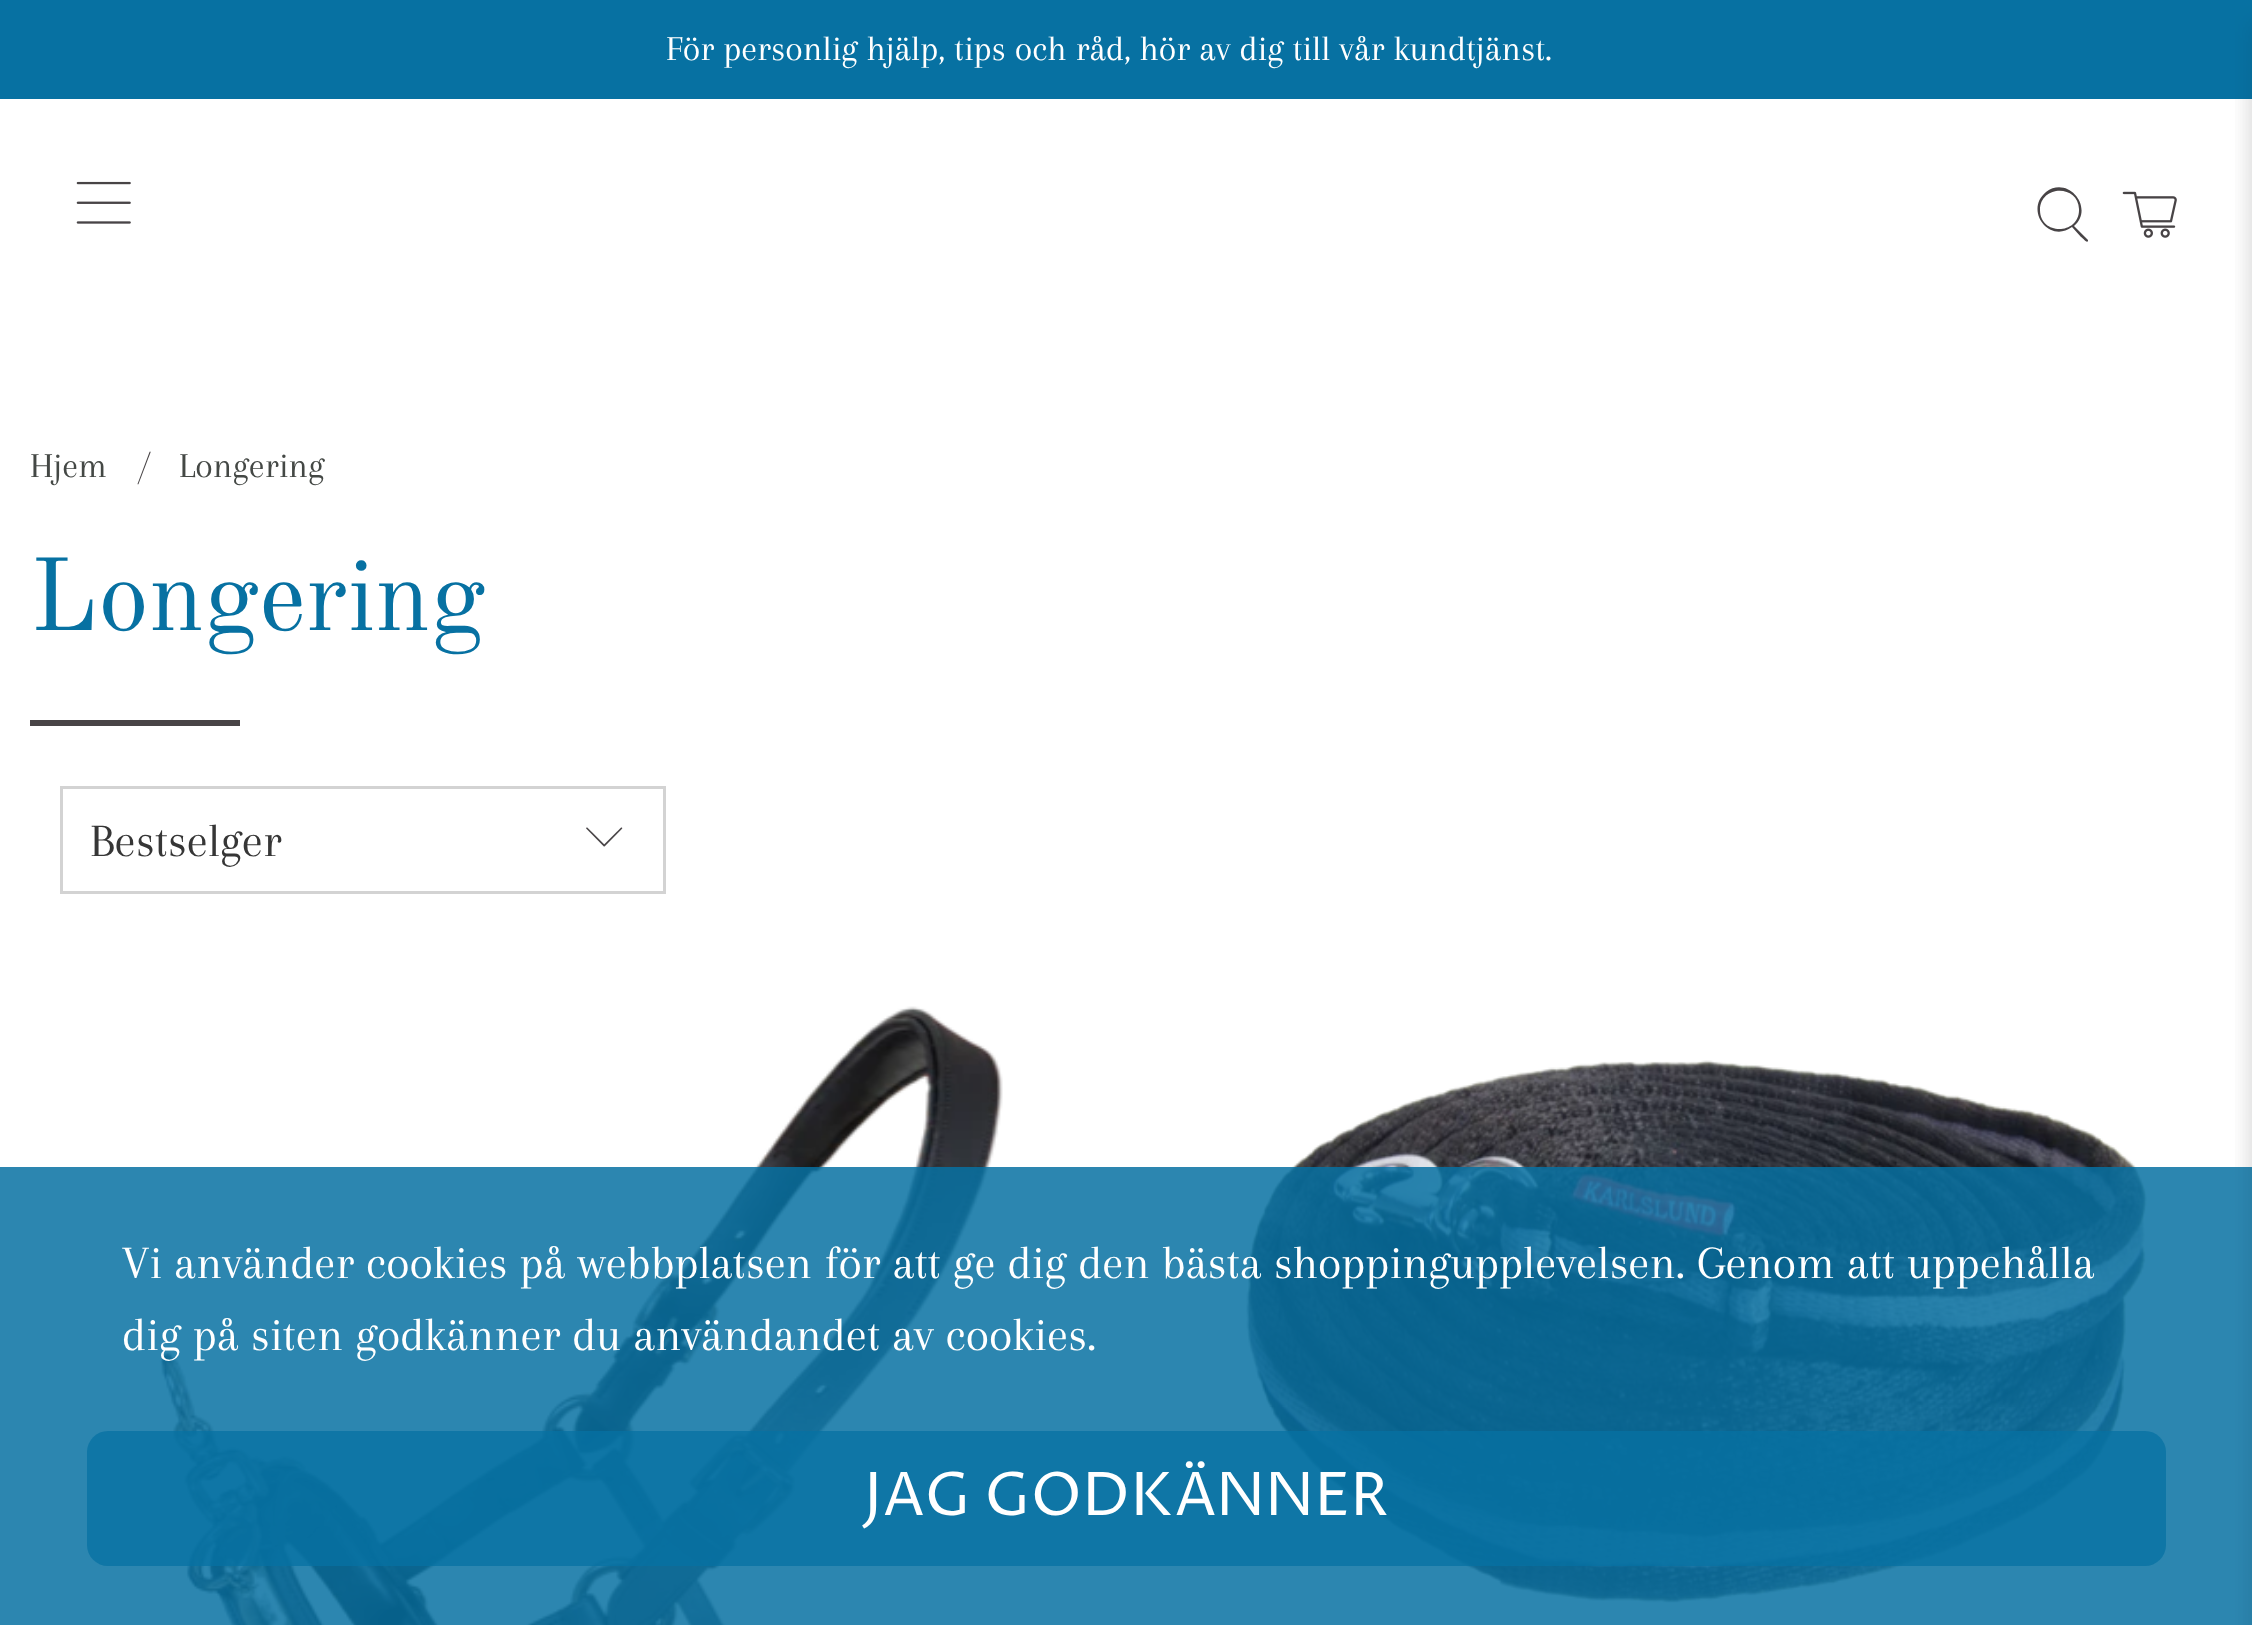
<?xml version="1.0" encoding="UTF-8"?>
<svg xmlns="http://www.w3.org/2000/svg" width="2252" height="1625">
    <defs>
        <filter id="blur1" x="-50%" y="-200%" width="200%" height="500%"><feGaussianBlur stdDeviation="12"/></filter>
    </defs>
    <rect width="100%" height="100%" fill="#FFFFFF"/>
    <image x="76" y="181" width="55" height="43" href="img_01.png"/>
    <path d="M 2088 240 L 2074 226 C 2095 208 2068 175 2046 192 C 2024 210 2049 244 2072 227 L 2081 237 C 2082 237 2087 244 2088 241 Z M 2040 210 C 2040 185 2078 184 2079 209 C 2080 235 2040 236 2040 210 Z" fill="#484446"/>
    <image x="2122" y="191" width="55" height="47" href="img_02.png"/>
    <rect x="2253" y="24" width="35" height="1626" fill="#0A0A0A" fill-opacity="0.1" filter="url(#blur1)"/>
    <rect x="0" y="0" width="2252" height="99" fill="#0771A2"/>
    <text x="666" y="60" font-family="Arapey" font-size="36" fill="#FFFFFF">För personlig hjälp, tips och råd, hör av dig till vår kundtjänst.</text>
    <image x="159" y="1006" width="844" height="619" href="img_04.png"/>
    <image x="1246" y="1060" width="901" height="543" href="img_05.png"/>
    <rect x="0" y="1167" width="2252" height="458" fill="#0771A2" fill-opacity="0.85"/>
    <rect x="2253" y="24" width="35" height="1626" fill="#0A0A0A" fill-opacity="0.1" filter="url(#blur1)"/>
    <text x="30" y="477" font-family="Arapey" font-size="36" fill="#444845">Hjem</text>
    <path d="M 138 484.5 L 137.5 484 L 149.5 452 L 150 451.5 C 150.5 451.5 150.5 452 150.5 452.5 L 138.5 484 Z" fill="#484446"/>
    <text x="179" y="477" font-family="Arapey" font-size="36" fill="#444845">Longering</text>
    <text x="30" y="630" font-family="Old Standard TT" font-size="102" fill="#0771A2">Longering</text>
    <rect x="30" y="720" width="210" height="6" fill="#484446"/>
    <rect x="61.5" y="787.5" width="603" height="105" fill="none" stroke="#D3D3D3" stroke-width="3"/>
    <text x="90" y="856" font-family="Arapey" font-size="48" fill="#363636">Bestselger</text>
    <image x="586" y="827" width="37" height="20" href="img_03.png"/>
    <text font-family="Arapey" font-size="48" fill="#FFFFFF">
        <tspan x="122" y="1278">Vi använder cookies på webbplatsen för att ge dig den bästa shoppingupplevelsen. Genom att uppehålla</tspan>
        <tspan x="122" y="1350">dig på siten godkänner du användandet av cookies.</tspan>
    </text>
    <rect x="87" y="1431" width="2079" height="135" rx="21" fill="#0771A2" fill-opacity="0.77"/>
    <text x="864" y="1515" font-family="Proza Libre" font-size="60" fill="#FFFFFF">JAG GODKÄNNER</text>
</svg>
